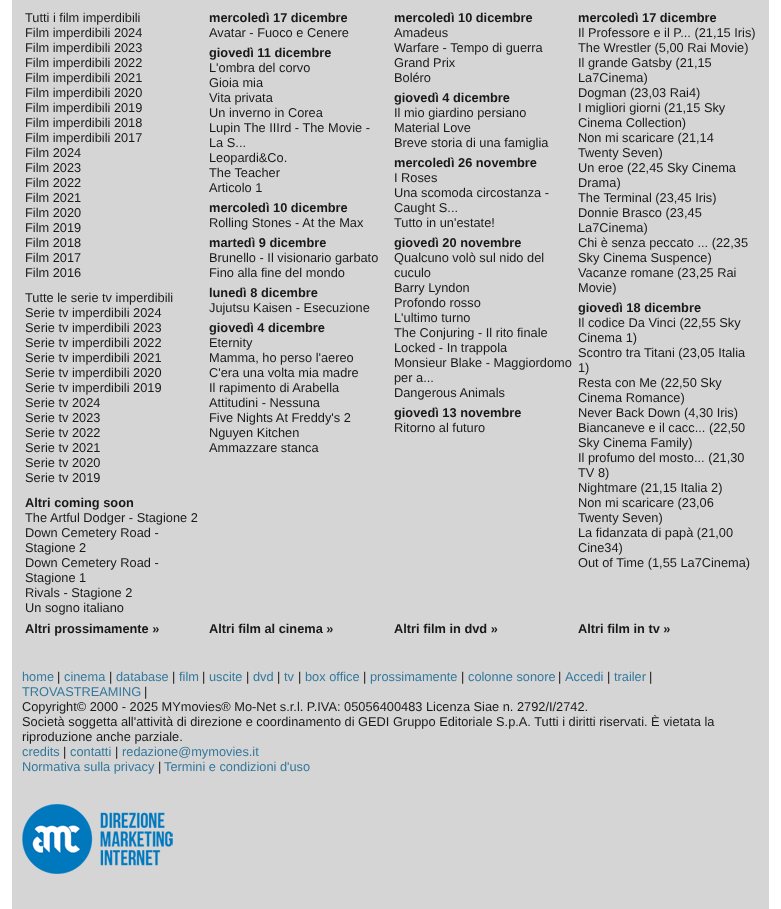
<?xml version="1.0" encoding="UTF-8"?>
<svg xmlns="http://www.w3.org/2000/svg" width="781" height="909">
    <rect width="100%" height="100%" fill="#FFFFFF"/>
    <rect x="12" y="0" width="757" height="909" fill="#D5D5D5"/>
    <text font-family="Liberation Sans" font-size="12.8" fill="#191919">
        <tspan x="25" y="22">Tutti i film imperdibili</tspan>
        <tspan x="25" y="37">Film imperdibili 2024</tspan>
        <tspan x="25" y="52">Film imperdibili 2023</tspan>
        <tspan x="25" y="67">Film imperdibili 2022</tspan>
        <tspan x="25" y="82">Film imperdibili 2021</tspan>
        <tspan x="25" y="97">Film imperdibili 2020</tspan>
        <tspan x="25" y="112">Film imperdibili 2019</tspan>
        <tspan x="25" y="127">Film imperdibili 2018</tspan>
        <tspan x="25" y="142">Film imperdibili 2017</tspan>
        <tspan x="25" y="157">Film 2024</tspan>
        <tspan x="25" y="172">Film 2023</tspan>
        <tspan x="25" y="187">Film 2022</tspan>
        <tspan x="25" y="202">Film 2021</tspan>
        <tspan x="25" y="217">Film 2020</tspan>
        <tspan x="25" y="232">Film 2019</tspan>
        <tspan x="25" y="247">Film 2018</tspan>
        <tspan x="25" y="262">Film 2017</tspan>
        <tspan x="25" y="277">Film 2016</tspan>
        <tspan x="25" y="302">Tutte le serie tv imperdibili</tspan>
        <tspan x="25" y="317">Serie tv imperdibili 2024</tspan>
        <tspan x="25" y="332">Serie tv imperdibili 2023</tspan>
        <tspan x="25" y="347">Serie tv imperdibili 2022</tspan>
        <tspan x="25" y="362">Serie tv imperdibili 2021</tspan>
        <tspan x="25" y="377">Serie tv imperdibili 2020</tspan>
        <tspan x="25" y="392">Serie tv imperdibili 2019</tspan>
        <tspan x="25" y="407">Serie tv 2024</tspan>
        <tspan x="25" y="422">Serie tv 2023</tspan>
        <tspan x="25" y="437">Serie tv 2022</tspan>
        <tspan x="25" y="452">Serie tv 2021</tspan>
        <tspan x="25" y="467">Serie tv 2020</tspan>
        <tspan x="25" y="482">Serie tv 2019</tspan>
    </text>
    <text x="25" y="507" font-family="Liberation Sans" font-size="12.8" font-weight="700" fill="#191919">Altri coming soon</text>
    <text font-family="Liberation Sans" font-size="12.8" fill="#191919">
        <tspan x="25" y="522">The Artful Dodger - Stagione 2</tspan>
        <tspan x="25" y="537">Down Cemetery Road -</tspan>
        <tspan x="25" y="552">Stagione 2</tspan>
        <tspan x="25" y="567">Down Cemetery Road -</tspan>
        <tspan x="25" y="582">Stagione 1</tspan>
        <tspan x="25" y="597">Rivals - Stagione 2</tspan>
        <tspan x="25" y="612">Un sogno italiano</tspan>
    </text>
    <text x="209" y="22" font-family="Liberation Sans" font-size="12.8" font-weight="700" fill="#191919">mercoledì 17 dicembre</text>
    <text x="209" y="37" font-family="Liberation Sans" font-size="12.8" fill="#191919">Avatar - Fuoco e Cenere</text>
    <text x="209" y="57" font-family="Liberation Sans" font-size="12.8" font-weight="700" fill="#191919">giovedì 11 dicembre</text>
    <text font-family="Liberation Sans" font-size="12.8" fill="#191919">
        <tspan x="209" y="72">L'ombra del corvo</tspan>
        <tspan x="209" y="87">Gioia mia</tspan>
        <tspan x="209" y="102">Vita privata</tspan>
        <tspan x="209" y="117">Un inverno in Corea</tspan>
        <tspan x="209" y="132">Lupin The IIIrd - The Movie -</tspan>
        <tspan x="209" y="147">La S...</tspan>
        <tspan x="209" y="162">Leopardi&amp;Co.</tspan>
        <tspan x="209" y="177">The Teacher</tspan>
        <tspan x="209" y="192">Articolo 1</tspan>
    </text>
    <text x="209" y="212" font-family="Liberation Sans" font-size="12.8" font-weight="700" fill="#191919">mercoledì 10 dicembre</text>
    <text x="209" y="227" font-family="Liberation Sans" font-size="12.8" fill="#191919">Rolling Stones - At the Max</text>
    <text x="209" y="247" font-family="Liberation Sans" font-size="12.8" font-weight="700" fill="#191919">martedì 9 dicembre</text>
    <text font-family="Liberation Sans" font-size="12.8" fill="#191919">
        <tspan x="209" y="262">Brunello - Il visionario garbato</tspan>
        <tspan x="209" y="277">Fino alla fine del mondo</tspan>
    </text>
    <text x="209" y="297" font-family="Liberation Sans" font-size="12.8" font-weight="700" fill="#191919">lunedì 8 dicembre</text>
    <text x="209" y="312" font-family="Liberation Sans" font-size="12.8" fill="#191919">Jujutsu Kaisen - Esecuzione</text>
    <text x="209" y="332" font-family="Liberation Sans" font-size="12.8" font-weight="700" fill="#191919">giovedì 4 dicembre</text>
    <text font-family="Liberation Sans" font-size="12.8" fill="#191919">
        <tspan x="209" y="347">Eternity</tspan>
        <tspan x="209" y="362">Mamma, ho perso l'aereo</tspan>
        <tspan x="209" y="377">C'era una volta mia madre</tspan>
        <tspan x="209" y="392">Il rapimento di Arabella</tspan>
        <tspan x="209" y="407">Attitudini - Nessuna</tspan>
        <tspan x="209" y="422">Five Nights At Freddy's 2</tspan>
        <tspan x="209" y="437">Nguyen Kitchen</tspan>
        <tspan x="209" y="452">Ammazzare stanca</tspan>
    </text>
    <text x="394" y="22" font-family="Liberation Sans" font-size="12.8" font-weight="700" fill="#191919">mercoledì 10 dicembre</text>
    <text font-family="Liberation Sans" font-size="12.8" fill="#191919">
        <tspan x="394" y="37">Amadeus</tspan>
        <tspan x="394" y="52">Warfare - Tempo di guerra</tspan>
        <tspan x="394" y="67">Grand Prix</tspan>
        <tspan x="394" y="82">Boléro</tspan>
    </text>
    <text x="394" y="102" font-family="Liberation Sans" font-size="12.8" font-weight="700" fill="#191919">giovedì 4 dicembre</text>
    <text font-family="Liberation Sans" font-size="12.8" fill="#191919">
        <tspan x="394" y="117">Il mio giardino persiano</tspan>
        <tspan x="394" y="132">Material Love</tspan>
        <tspan x="394" y="147">Breve storia di una famiglia</tspan>
    </text>
    <text x="394" y="167" font-family="Liberation Sans" font-size="12.8" font-weight="700" fill="#191919">mercoledì 26 novembre</text>
    <text font-family="Liberation Sans" font-size="12.8" fill="#191919">
        <tspan x="394" y="182">I Roses</tspan>
        <tspan x="394" y="197">Una scomoda circostanza -</tspan>
        <tspan x="394" y="212">Caught S...</tspan>
        <tspan x="394" y="227">Tutto in un'estate!</tspan>
    </text>
    <text x="394" y="247" font-family="Liberation Sans" font-size="12.8" font-weight="700" fill="#191919">giovedì 20 novembre</text>
    <text font-family="Liberation Sans" font-size="12.8" fill="#191919">
        <tspan x="394" y="262">Qualcuno volò sul nido del</tspan>
        <tspan x="394" y="277">cuculo</tspan>
        <tspan x="394" y="292">Barry Lyndon</tspan>
        <tspan x="394" y="307">Profondo rosso</tspan>
        <tspan x="394" y="322">L'ultimo turno</tspan>
        <tspan x="394" y="337">The Conjuring - Il rito finale</tspan>
        <tspan x="394" y="352">Locked - In trappola</tspan>
        <tspan x="394" y="367">Monsieur Blake - Maggiordomo</tspan>
        <tspan x="394" y="382">per a...</tspan>
        <tspan x="394" y="397">Dangerous Animals</tspan>
    </text>
    <text x="394" y="417" font-family="Liberation Sans" font-size="12.8" font-weight="700" fill="#191919">giovedì 13 novembre</text>
    <text x="394" y="432" font-family="Liberation Sans" font-size="12.8" fill="#191919">Ritorno al futuro</text>
    <text x="578" y="22" font-family="Liberation Sans" font-size="12.8" font-weight="700" fill="#191919">mercoledì 17 dicembre</text>
    <text font-family="Liberation Sans" font-size="12.8" fill="#191919">
        <tspan x="578" y="37">Il Professore e il P... (21,15 Iris)</tspan>
        <tspan x="578" y="52">The Wrestler (5,00 Rai Movie)</tspan>
        <tspan x="578" y="67">Il grande Gatsby (21,15</tspan>
        <tspan x="578" y="82">La7Cinema)</tspan>
        <tspan x="578" y="97">Dogman (23,03 Rai4)</tspan>
        <tspan x="578" y="112">I migliori giorni (21,15 Sky</tspan>
        <tspan x="578" y="127">Cinema Collection)</tspan>
        <tspan x="578" y="142">Non mi scaricare (21,14</tspan>
        <tspan x="578" y="157">Twenty Seven)</tspan>
        <tspan x="578" y="172">Un eroe (22,45 Sky Cinema</tspan>
        <tspan x="578" y="187">Drama)</tspan>
        <tspan x="578" y="202">The Terminal (23,45 Iris)</tspan>
        <tspan x="578" y="217">Donnie Brasco (23,45</tspan>
        <tspan x="578" y="232">La7Cinema)</tspan>
        <tspan x="578" y="247">Chi è senza peccato ... (22,35</tspan>
        <tspan x="578" y="262">Sky Cinema Suspence)</tspan>
        <tspan x="578" y="277">Vacanze romane (23,25 Rai</tspan>
        <tspan x="578" y="292">Movie)</tspan>
    </text>
    <text x="578" y="312" font-family="Liberation Sans" font-size="12.8" font-weight="700" fill="#191919">giovedì 18 dicembre</text>
    <text font-family="Liberation Sans" font-size="12.8" fill="#191919">
        <tspan x="578" y="327">Il codice Da Vinci (22,55 Sky</tspan>
        <tspan x="578" y="342">Cinema 1)</tspan>
        <tspan x="578" y="357">Scontro tra Titani (23,05 Italia</tspan>
        <tspan x="578" y="372">1)</tspan>
        <tspan x="578" y="387">Resta con Me (22,50 Sky</tspan>
        <tspan x="578" y="402">Cinema Romance)</tspan>
        <tspan x="578" y="417">Never Back Down (4,30 Iris)</tspan>
        <tspan x="578" y="432">Biancaneve e il cacc... (22,50</tspan>
        <tspan x="578" y="447">Sky Cinema Family)</tspan>
        <tspan x="578" y="462">Il profumo del mosto... (21,30</tspan>
        <tspan x="578" y="477">TV 8)</tspan>
        <tspan x="578" y="492">Nightmare (21,15 Italia 2)</tspan>
        <tspan x="578" y="507">Non mi scaricare (23,06</tspan>
        <tspan x="578" y="522">Twenty Seven)</tspan>
        <tspan x="578" y="537">La fidanzata di papà (21,00</tspan>
        <tspan x="578" y="552">Cine34)</tspan>
        <tspan x="578" y="567">Out of Time (1,55 La7Cinema)</tspan>
    </text>
    <text x="25" y="633" font-family="Liberation Sans" font-size="12.8" font-weight="700" fill="#191919">Altri prossimamente »</text>
    <text x="209" y="633" font-family="Liberation Sans" font-size="12.8" font-weight="700" fill="#191919">Altri film al cinema »</text>
    <text x="394" y="633" font-family="Liberation Sans" font-size="12.8" font-weight="700" fill="#191919">Altri film in dvd »</text>
    <text x="578" y="633" font-family="Liberation Sans" font-size="12.8" font-weight="700" fill="#191919">Altri film in tv »</text>
    <text x="22" y="681" font-family="Liberation Sans" font-size="12.8" fill="#33789D">home</text>
    <text x="57" y="681" font-family="Liberation Sans" font-size="12.8" fill="#191919">|</text>
    <text x="64" y="681" font-family="Liberation Sans" font-size="12.8" fill="#33789D">cinema</text>
    <text x="109" y="681" font-family="Liberation Sans" font-size="12.8" fill="#191919">|</text>
    <text x="116" y="681" font-family="Liberation Sans" font-size="12.8" fill="#33789D">database</text>
    <text x="172" y="681" font-family="Liberation Sans" font-size="12.8" fill="#191919">|</text>
    <text x="179" y="681" font-family="Liberation Sans" font-size="12.8" fill="#33789D">film</text>
    <text x="202" y="681" font-family="Liberation Sans" font-size="12.8" fill="#191919">|</text>
    <text x="209" y="681" font-family="Liberation Sans" font-size="12.8" fill="#33789D">uscite</text>
    <text x="246" y="681" font-family="Liberation Sans" font-size="12.8" fill="#191919">|</text>
    <text x="253" y="681" font-family="Liberation Sans" font-size="12.8" fill="#33789D">dvd</text>
    <text x="277" y="681" font-family="Liberation Sans" font-size="12.8" fill="#191919">|</text>
    <text x="284" y="681" font-family="Liberation Sans" font-size="12.8" fill="#33789D">tv</text>
    <text x="298" y="681" font-family="Liberation Sans" font-size="12.8" fill="#191919">|</text>
    <text x="305" y="681" font-family="Liberation Sans" font-size="12.8" fill="#33789D">box office</text>
    <text x="363" y="681" font-family="Liberation Sans" font-size="12.8" fill="#191919">|</text>
    <text x="370" y="681" font-family="Liberation Sans" font-size="12.8" fill="#33789D">prossimamente</text>
    <text x="461" y="681" font-family="Liberation Sans" font-size="12.8" fill="#191919">|</text>
    <text x="468" y="681" font-family="Liberation Sans" font-size="12.8" fill="#33789D">colonne sonore</text>
    <text x="558" y="681" font-family="Liberation Sans" font-size="12.8" fill="#191919">|</text>
    <text x="565" y="681" font-family="Liberation Sans" font-size="12.8" fill="#33789D">Accedi</text>
    <text x="607" y="681" font-family="Liberation Sans" font-size="12.8" fill="#191919">|</text>
    <text x="614" y="681" font-family="Liberation Sans" font-size="12.8" fill="#33789D">trailer</text>
    <text x="649" y="681" font-family="Liberation Sans" font-size="12.8" fill="#191919">|</text>
    <text x="22" y="696" font-family="Liberation Sans" font-size="12.8" fill="#33789D">TROVASTREAMING</text>
    <text x="144" y="696" font-family="Liberation Sans" font-size="12.8" fill="#191919">|</text>
    <text font-family="Liberation Sans" font-size="12.8" fill="#191919">
        <tspan x="22" y="711">Copyright© 2000 - 2025 MYmovies® Mo-Net s.r.l. P.IVA: 05056400483 Licenza Siae n. 2792/I/2742.</tspan>
        <tspan x="22" y="726">Società soggetta all'attività di direzione e coordinamento di GEDI Gruppo Editoriale S.p.A. Tutti i diritti riservati. È vietata la</tspan>
        <tspan x="22" y="741">riproduzione anche parziale.</tspan>
    </text>
    <text x="22" y="756" font-family="Liberation Sans" font-size="12.8" fill="#33789D">credits</text>
    <text x="63" y="756" font-family="Liberation Sans" font-size="12.8" fill="#191919">|</text>
    <text x="70" y="756" font-family="Liberation Sans" font-size="12.8" fill="#33789D">contatti</text>
    <text x="115" y="756" font-family="Liberation Sans" font-size="12.8" fill="#191919">|</text>
    <text x="122" y="756" font-family="Liberation Sans" font-size="12.8" fill="#33789D">redazione@mymovies.it</text>
    <text x="22" y="771" font-family="Liberation Sans" font-size="12.8" fill="#33789D">Normativa sulla privacy</text>
    <text x="158" y="771" font-family="Liberation Sans" font-size="12.8" fill="#191919">|</text>
    <text x="164" y="771" font-family="Liberation Sans" font-size="12.8" fill="#33789D">Termini e condizioni d'uso</text>
    <image x="22" y="804" width="151" height="70" href="img_01.png"/>
</svg>
